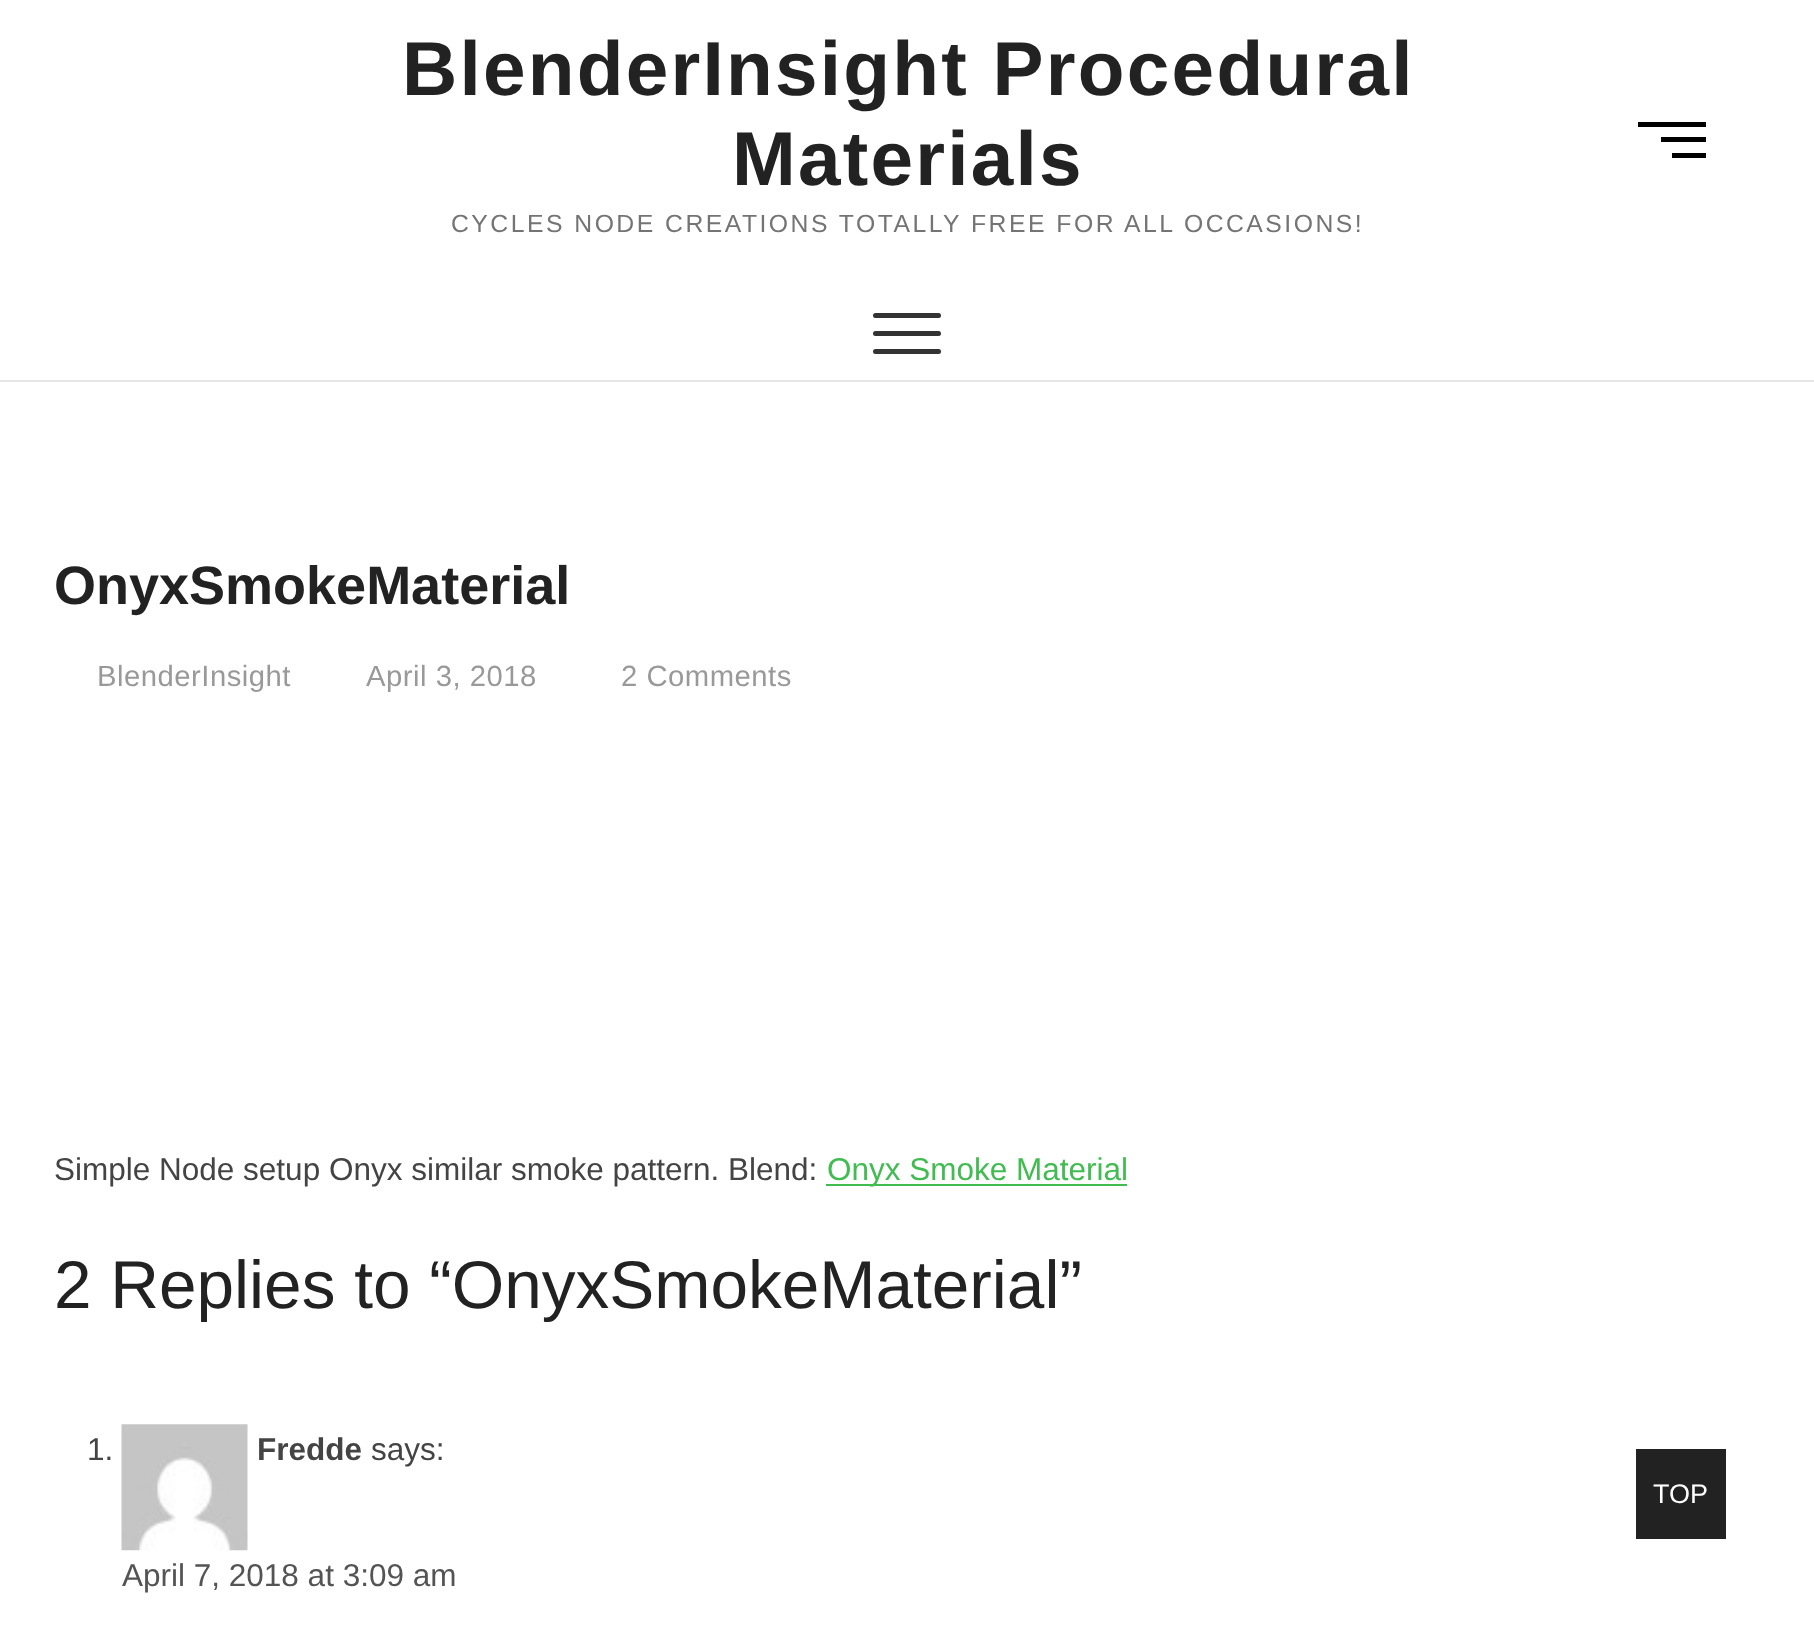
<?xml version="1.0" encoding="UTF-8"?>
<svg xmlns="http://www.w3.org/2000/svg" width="1814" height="1627">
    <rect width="100%" height="100%" fill="#FFFFFF"/>
    <text x="402" y="95" font-family="Liberation Sans" font-size="76.5" font-weight="700" letter-spacing="2.25" fill="#222222">BlenderInsight Procedural</text>
    <text x="732" y="185" font-family="Liberation Sans" font-size="76.5" font-weight="700" letter-spacing="2.25" fill="#222222">Materials</text>
    <text x="451" y="232" font-family="Liberation Sans" font-size="24.75" letter-spacing="2.48" fill="#747474">CYCLES NODE CREATIONS TOTALLY FREE FOR ALL OCCASIONS!</text>
    <rect x="1661" y="137" width="45" height="5" fill="#000000"/>
    <rect x="1638" y="122" width="68" height="5" fill="#000000"/>
    <rect x="1672" y="153" width="34" height="5" fill="#000000"/>
    <rect x="0" y="380" width="1814" height="2" fill="#E6E6E6"/>
    <rect x="873" y="331" width="68" height="5" rx="2.5" fill="#333333"/>
    <rect x="873" y="313" width="68" height="5" rx="2.5" fill="#333333"/>
    <rect x="873" y="349" width="68" height="5" rx="2.5" fill="#333333"/>
    <text x="54" y="604" font-family="Liberation Sans" font-size="54" font-weight="700" fill="#222222">OnyxSmokeMaterial</text>
    <text x="97" y="686" font-family="Liberation Sans" font-size="29.25" letter-spacing="0.5" fill="#999999">BlenderInsight</text>
    <text x="366" y="686" font-family="Liberation Sans" font-size="29.25" letter-spacing="0.5" fill="#999999">April 3, 2018</text>
    <text x="621" y="686" font-family="Liberation Sans" font-size="29.25" letter-spacing="0.5" fill="#999999">2 Comments</text>
    <text x="54" y="1180" font-family="Liberation Sans" font-size="31.5" fill="#444444">Simple Node setup Onyx similar smoke pattern. Blend:</text>
    <rect x="826" y="1184" width="301" height="2" fill="#40BC50"/>
    <text x="827" y="1180" font-family="Liberation Sans" font-size="31.5" fill="#40BC50">Onyx Smoke Material</text>
    <text x="54" y="1308" font-family="Liberation Sans" font-size="67.5" fill="#222222">2 Replies to “OnyxSmokeMaterial”</text>
    <text x="87" y="1460" font-family="Liberation Sans" font-size="31.5" fill="#444444">1.</text>
    <image x="121" y="1424" width="127" height="127" href="img_01.png"/>
    <text x="257" y="1460" font-family="Liberation Sans" font-size="31.5" font-weight="700" fill="#444444">Fredde</text>
    <text x="371" y="1460" font-family="Liberation Sans" font-size="31.5" fill="#444444">says:</text>
    <text x="122" y="1586" font-family="Liberation Sans" font-size="31.5" fill="#545454">April 7, 2018 at 3:09 am</text>
    <rect x="1636" y="1449" width="90" height="90" fill="#222222"/>
    <text x="1653" y="1503" font-family="Liberation Sans" font-size="27" fill="#FFFFFF">TOP</text>
</svg>
